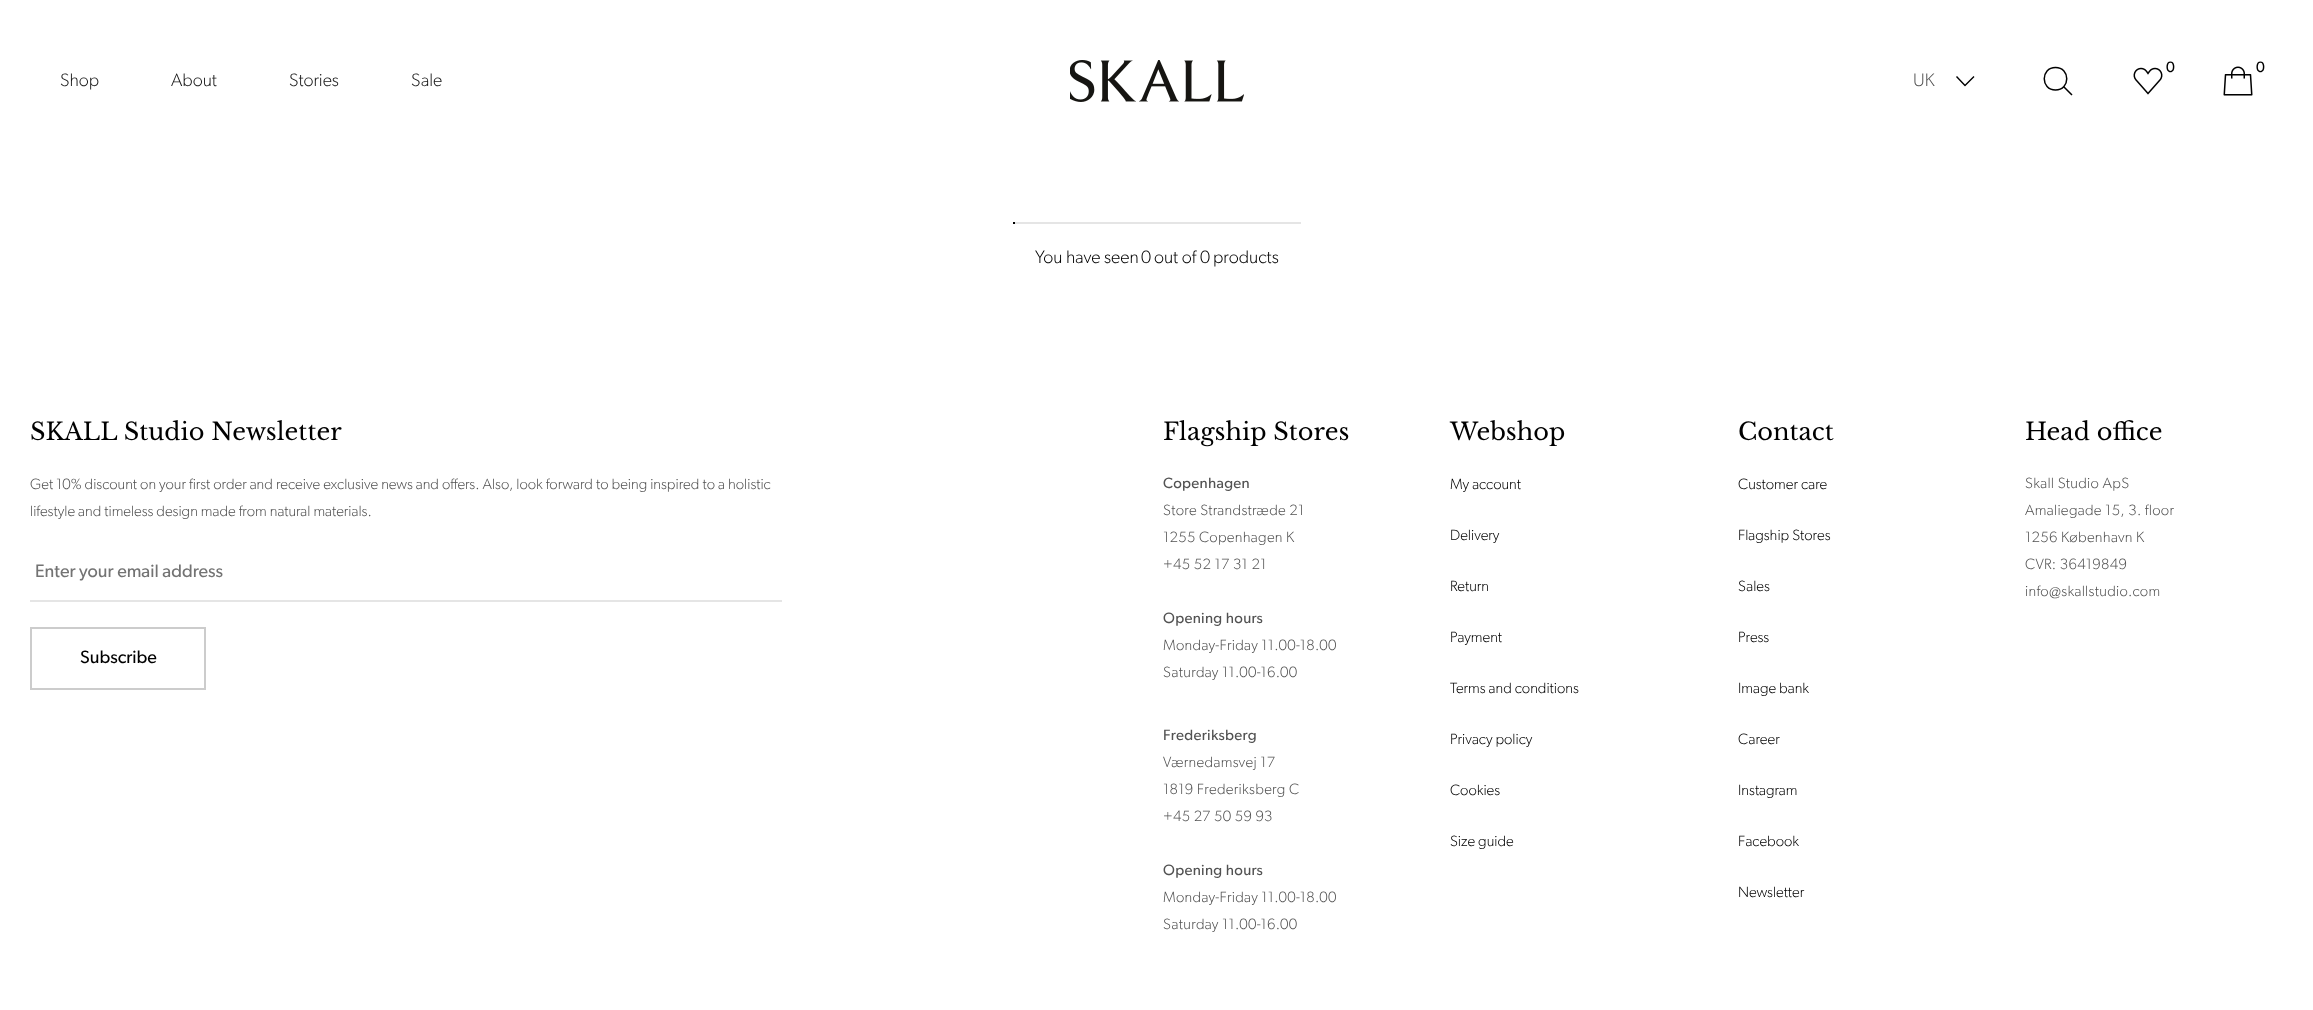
<?xml version="1.0" encoding="UTF-8"?>
<svg xmlns="http://www.w3.org/2000/svg" width="2313" height="1010">
    <rect width="100%" height="100%" fill="#FFFFFF"/>
    <text x="60" y="86" font-family="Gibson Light" font-size="18" font-weight="300" fill="#171717">Shop</text>
    <text x="171" y="86" font-family="Gibson Light" font-size="18" font-weight="300" fill="#171717">About</text>
    <text x="289" y="86" font-family="Gibson Light" font-size="18" font-weight="300" fill="#171717">Stories</text>
    <text x="411" y="86" font-family="Gibson Light" font-size="18" font-weight="300" fill="#171717">Sale</text>
    <image x="1070" y="60" width="174" height="42" href="img_01.png"/>
    <text x="1913" y="86" font-family="Gibson Light" font-size="18" font-weight="300" fill="#525252">UK</text>
    <path d="M 1956.5 76.5 L 1965 85.5 L 1974 76.5" fill="none" stroke="#000000" stroke-width="1.4" stroke-linejoin="round"/>
    <path d="M 2055.5 90 C 2070.5 90 2070.5 67.5 2055.5 67.5 C 2040.5 67.5 2040.5 90 2055.5 90 Z M 2063.5 86.5 L 2072 95" fill="none" stroke="#000000" stroke-width="1.5"/>
    <image x="2133" y="67" width="30" height="28" href="img_02.png"/>
    <text x="2166" y="72" font-family="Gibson" font-size="15" fill="#000000">0</text>
    <image x="2223" y="66" width="30" height="30" href="img_03.png"/>
    <text x="2256" y="72" font-family="Gibson" font-size="15" fill="#000000">0</text>
    <rect x="1013" y="222" width="288" height="2" fill="#E5E5E5"/>
    <rect x="1013" y="222" width="2" height="2" fill="#000000"/>
    <text x="1035" y="263" font-family="Gibson Light" font-size="18" font-weight="300" fill="#000000">You have seen</text>
    <text x="1141" y="263" font-family="Gibson Light" font-size="18" font-weight="300" fill="#000000">0</text>
    <text x="1154" y="263" font-family="Gibson Light" font-size="18" font-weight="300" fill="#000000">out of</text>
    <text x="1200" y="263" font-family="Gibson Light" font-size="18" font-weight="300" fill="#000000">0</text>
    <text x="1213" y="263" font-family="Gibson Light" font-size="18" font-weight="300" fill="#000000">products</text>
    <text x="30" y="440" font-family="Libre Baskerville" font-size="24" fill="#000000">SKALL Studio Newsletter</text>
    <text font-family="Gibson Light" font-size="15" font-weight="300" fill="#525252">
        <tspan x="30" y="489">Get 10% discount on your first order and receive exclusive news and offers. Also, look forward to being inspired to a holistic</tspan>
        <tspan x="30" y="516">lifestyle and timeless design made from natural materials.</tspan>
    </text>
    <rect x="30" y="600" width="752" height="2" fill="#E5E5E5"/>
    <text x="35" y="577" font-family="Gibson" font-size="18" fill="#737373">Enter your email address</text>
    <rect x="31" y="628" width="174" height="61" fill="none" stroke="#CCCCCC" stroke-width="2"/>
    <text x="80" y="663" font-family="Gibson" font-size="18" fill="#000000">Subscribe</text>
    <text x="1163" y="440" font-family="Libre Baskerville" font-size="24" fill="#000000">Flagship Stores</text>
    <text x="1163" y="488" font-family="Gibson" font-size="15" letter-spacing="0.3" fill="#525252">Copenhagen</text>
    <text font-family="Gibson Light" font-size="15" font-weight="300" letter-spacing="0.3" fill="#525252">
        <tspan x="1163" y="515">Store Strandstræde 21</tspan>
        <tspan x="1163" y="542">1255 Copenhagen K</tspan>
        <tspan x="1163" y="569">+45 52 17 31 21</tspan>
    </text>
    <text x="1163" y="623" font-family="Gibson" font-size="15" letter-spacing="0.3" fill="#525252">Opening hours</text>
    <text font-family="Gibson Light" font-size="15" font-weight="300" letter-spacing="0.3" fill="#525252">
        <tspan x="1163" y="650">Monday-Friday 11.00-18.00</tspan>
        <tspan x="1163" y="677">Saturday 11.00-16.00</tspan>
    </text>
    <text x="1163" y="740" font-family="Gibson" font-size="15" letter-spacing="0.3" fill="#525252">Frederiksberg</text>
    <text font-family="Gibson Light" font-size="15" font-weight="300" letter-spacing="0.3" fill="#525252">
        <tspan x="1163" y="767">Værnedamsvej 17</tspan>
        <tspan x="1163" y="794">1819 Frederiksberg C</tspan>
        <tspan x="1163" y="821">+45 27 50 59 93</tspan>
    </text>
    <text x="1163" y="875" font-family="Gibson" font-size="15" letter-spacing="0.3" fill="#525252">Opening hours</text>
    <text font-family="Gibson Light" font-size="15" font-weight="300" letter-spacing="0.3" fill="#525252">
        <tspan x="1163" y="902">Monday-Friday 11.00-18.00</tspan>
        <tspan x="1163" y="929">Saturday 11.00-16.00</tspan>
    </text>
    <text x="1450" y="440" font-family="Libre Baskerville" font-size="24" fill="#000000">Webshop</text>
    <text x="1450" y="489" font-family="Gibson Light" font-size="15" font-weight="300" fill="#000000">My account</text>
    <text x="1450" y="540" font-family="Gibson Light" font-size="15" font-weight="300" fill="#000000">Delivery</text>
    <text x="1450" y="591" font-family="Gibson Light" font-size="15" font-weight="300" fill="#000000">Return</text>
    <text x="1450" y="642" font-family="Gibson Light" font-size="15" font-weight="300" fill="#000000">Payment</text>
    <text x="1450" y="693" font-family="Gibson Light" font-size="15" font-weight="300" fill="#000000">Terms and conditions</text>
    <text x="1450" y="744" font-family="Gibson Light" font-size="15" font-weight="300" fill="#000000">Privacy policy</text>
    <text x="1450" y="795" font-family="Gibson Light" font-size="15" font-weight="300" fill="#000000">Cookies</text>
    <text x="1450" y="846" font-family="Gibson Light" font-size="15" font-weight="300" fill="#000000">Size guide</text>
    <text x="1738" y="440" font-family="Libre Baskerville" font-size="24" fill="#000000">Contact</text>
    <text x="1738" y="489" font-family="Gibson Light" font-size="15" font-weight="300" fill="#000000">Customer care</text>
    <text x="1738" y="540" font-family="Gibson Light" font-size="15" font-weight="300" fill="#000000">Flagship Stores</text>
    <text x="1738" y="591" font-family="Gibson Light" font-size="15" font-weight="300" fill="#000000">Sales</text>
    <text x="1738" y="642" font-family="Gibson Light" font-size="15" font-weight="300" fill="#000000">Press</text>
    <text x="1738" y="693" font-family="Gibson Light" font-size="15" font-weight="300" fill="#000000">Image bank</text>
    <text x="1738" y="744" font-family="Gibson Light" font-size="15" font-weight="300" fill="#000000">Career</text>
    <text x="1738" y="795" font-family="Gibson Light" font-size="15" font-weight="300" fill="#000000">Instagram</text>
    <text x="1738" y="846" font-family="Gibson Light" font-size="15" font-weight="300" fill="#000000">Facebook</text>
    <text x="1738" y="897" font-family="Gibson Light" font-size="15" font-weight="300" fill="#000000">Newsletter</text>
    <text x="2025" y="440" font-family="Libre Baskerville" font-size="24" fill="#000000">Head office</text>
    <text font-family="Gibson Light" font-size="15" font-weight="300" letter-spacing="0.3" fill="#525252">
        <tspan x="2025" y="488">Skall Studio ApS</tspan>
        <tspan x="2025" y="515">Amaliegade 15, 3. floor</tspan>
        <tspan x="2025" y="542">1256 København K</tspan>
        <tspan x="2025" y="569">CVR: 36419849</tspan>
        <tspan x="2025" y="596">info@skallstudio.com</tspan>
    </text>
</svg>
